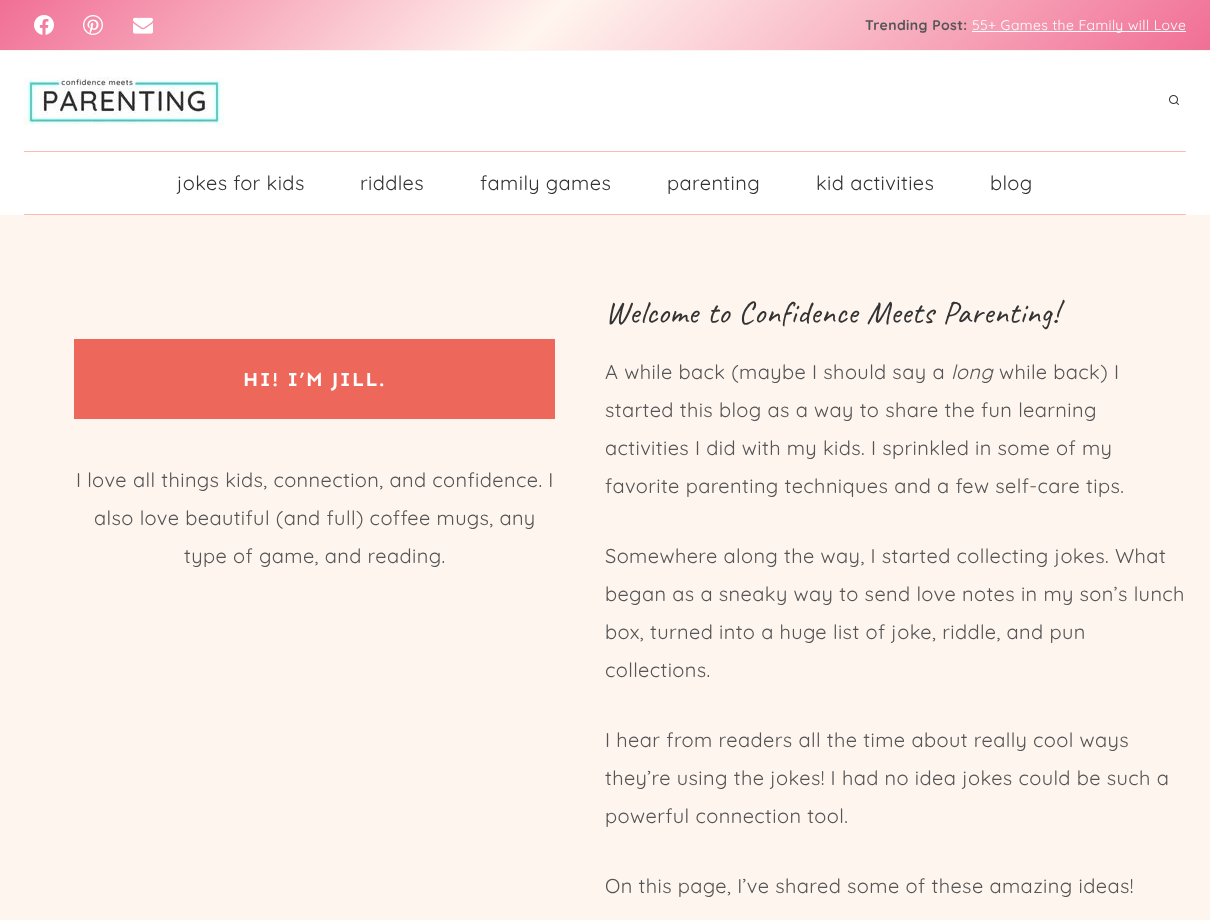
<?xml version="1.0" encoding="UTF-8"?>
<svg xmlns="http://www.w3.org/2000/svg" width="1210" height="920">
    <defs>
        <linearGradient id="g1" gradientUnits="userSpaceOnUse" x1="290" y1="-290" x2="920" y2="340"><stop offset="0" stop-color="#F16F95"/><stop offset="0.45" stop-color="#FFF5EF"/><stop offset="1" stop-color="#F16F95"/></linearGradient>
    </defs>
    <rect width="100%" height="100%" fill="#FFFFFF"/>
    <rect x="0" y="0" width="1210" height="50" fill="url(#g1)"/>
    <rect x="0" y="50" width="1210" height="1" fill="#FFF5EF"/>
    <image x="34" y="15" width="20" height="20" href="img_01.png"/>
    <image x="83" y="15" width="20" height="20" href="img_02.png"/>
    <image x="133" y="17" width="20" height="17" href="img_03.png"/>
    <text x="865" y="30" font-family="'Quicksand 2'" font-size="14" font-weight="300" letter-spacing="0.4" fill="#555555">Trending Post:</text>
    <rect x="972" y="31" width="214" height="1" fill="#FFFFFF"/>
    <text x="972" y="30" font-family="Quicksand" font-size="14" font-weight="300" letter-spacing="0.4" fill="#FFFFFF">55+ Games the Family will Love</text>
    <image x="24" y="77" width="200" height="48" href="img_04.png"/>
    <image x="1169" y="95" width="10" height="10" href="img_05.png"/>
    <rect x="24" y="151" width="1162" height="1" fill="#FEBBB3"/>
    <rect x="24" y="214" width="1162" height="1" fill="#FEBBB3"/>
    <text x="177" y="190" font-family="Quicksand" font-size="20" font-weight="300" letter-spacing="0.4" fill="#333333">jokes for kids</text>
    <text x="360" y="190" font-family="Quicksand" font-size="20" font-weight="300" letter-spacing="0.4" fill="#333333">riddles</text>
    <text x="480" y="190" font-family="Quicksand" font-size="20" font-weight="300" letter-spacing="0.4" fill="#333333">family games</text>
    <text x="667" y="190" font-family="Quicksand" font-size="20" font-weight="300" letter-spacing="0.4" fill="#333333">parenting</text>
    <text x="816" y="190" font-family="Quicksand" font-size="20" font-weight="300" letter-spacing="0.4" fill="#333333">kid activities</text>
    <text x="990" y="190" font-family="Quicksand" font-size="20" font-weight="300" letter-spacing="0.4" fill="#333333">blog</text>
    <rect x="0" y="215" width="1210" height="705" fill="#FFF5EF"/>
    <rect x="74" y="339" width="481" height="80" fill="#ED675B"/>
    <text x="243" y="386" font-family="Sen" font-size="20" font-weight="700" letter-spacing="1.5" fill="#FFFFFF">HI! I’M JILL.</text>
    <text x="76" y="487" font-family="Quicksand" font-size="20" font-weight="300" letter-spacing="0.4" fill="#555555">I love all things kids, connection, and confidence. I</text>
    <text x="94" y="525" font-family="Quicksand" font-size="20" font-weight="300" letter-spacing="0.4" fill="#555555">also love beautiful (and full) coffee mugs, any</text>
    <text x="184" y="563" font-family="Quicksand" font-size="20" font-weight="300" letter-spacing="0.4" fill="#555555">type of game, and reading.</text>
    <text x="605" y="323" word-spacing="0.5" font-family="Caveat" font-size="32" letter-spacing="0.4" fill="#333333">Welcome to Confidence Meets Parenting!</text>
    <text x="605" y="379" font-family="Quicksand" font-size="20" font-weight="300" letter-spacing="0.4" fill="#555555">A while back (maybe I should say a</text>
    <text x="951" y="379" font-family="Quicksand" font-size="20" font-weight="300" font-style="italic" letter-spacing="0.4" fill="#555555">long</text>
    <text x="999" y="379" font-family="Quicksand" font-size="20" font-weight="300" letter-spacing="0.4" fill="#555555">while back) I</text>
    <text font-family="Quicksand" font-size="20" font-weight="300" letter-spacing="0.4" fill="#555555">
        <tspan x="605" y="417">started this blog as a way to share the fun learning</tspan>
        <tspan x="605" y="455">activities I did with my kids. I sprinkled in some of my</tspan>
        <tspan x="605" y="493">favorite parenting techniques and a few self-care tips.</tspan>
    </text>
    <text font-family="Quicksand" font-size="20" font-weight="300" letter-spacing="0.4" fill="#555555">
        <tspan x="605" y="563">Somewhere along the way, I started collecting jokes. What</tspan>
        <tspan x="605" y="601">began as a sneaky way to send love notes in my son’s lunch</tspan>
        <tspan x="605" y="639">box, turned into a huge list of joke, riddle, and pun</tspan>
        <tspan x="605" y="677">collections.</tspan>
    </text>
    <text font-family="Quicksand" font-size="20" font-weight="300" letter-spacing="0.4" fill="#555555">
        <tspan x="605" y="747">I hear from readers all the time about really cool ways</tspan>
        <tspan x="605" y="785">they’re using the jokes! I had no idea jokes could be such a</tspan>
        <tspan x="605" y="823">powerful connection tool.</tspan>
    </text>
    <text x="605" y="893" font-family="Quicksand" font-size="20" font-weight="300" letter-spacing="0.4" fill="#555555">On this page, I’ve shared some of these amazing ideas!</text>
</svg>
